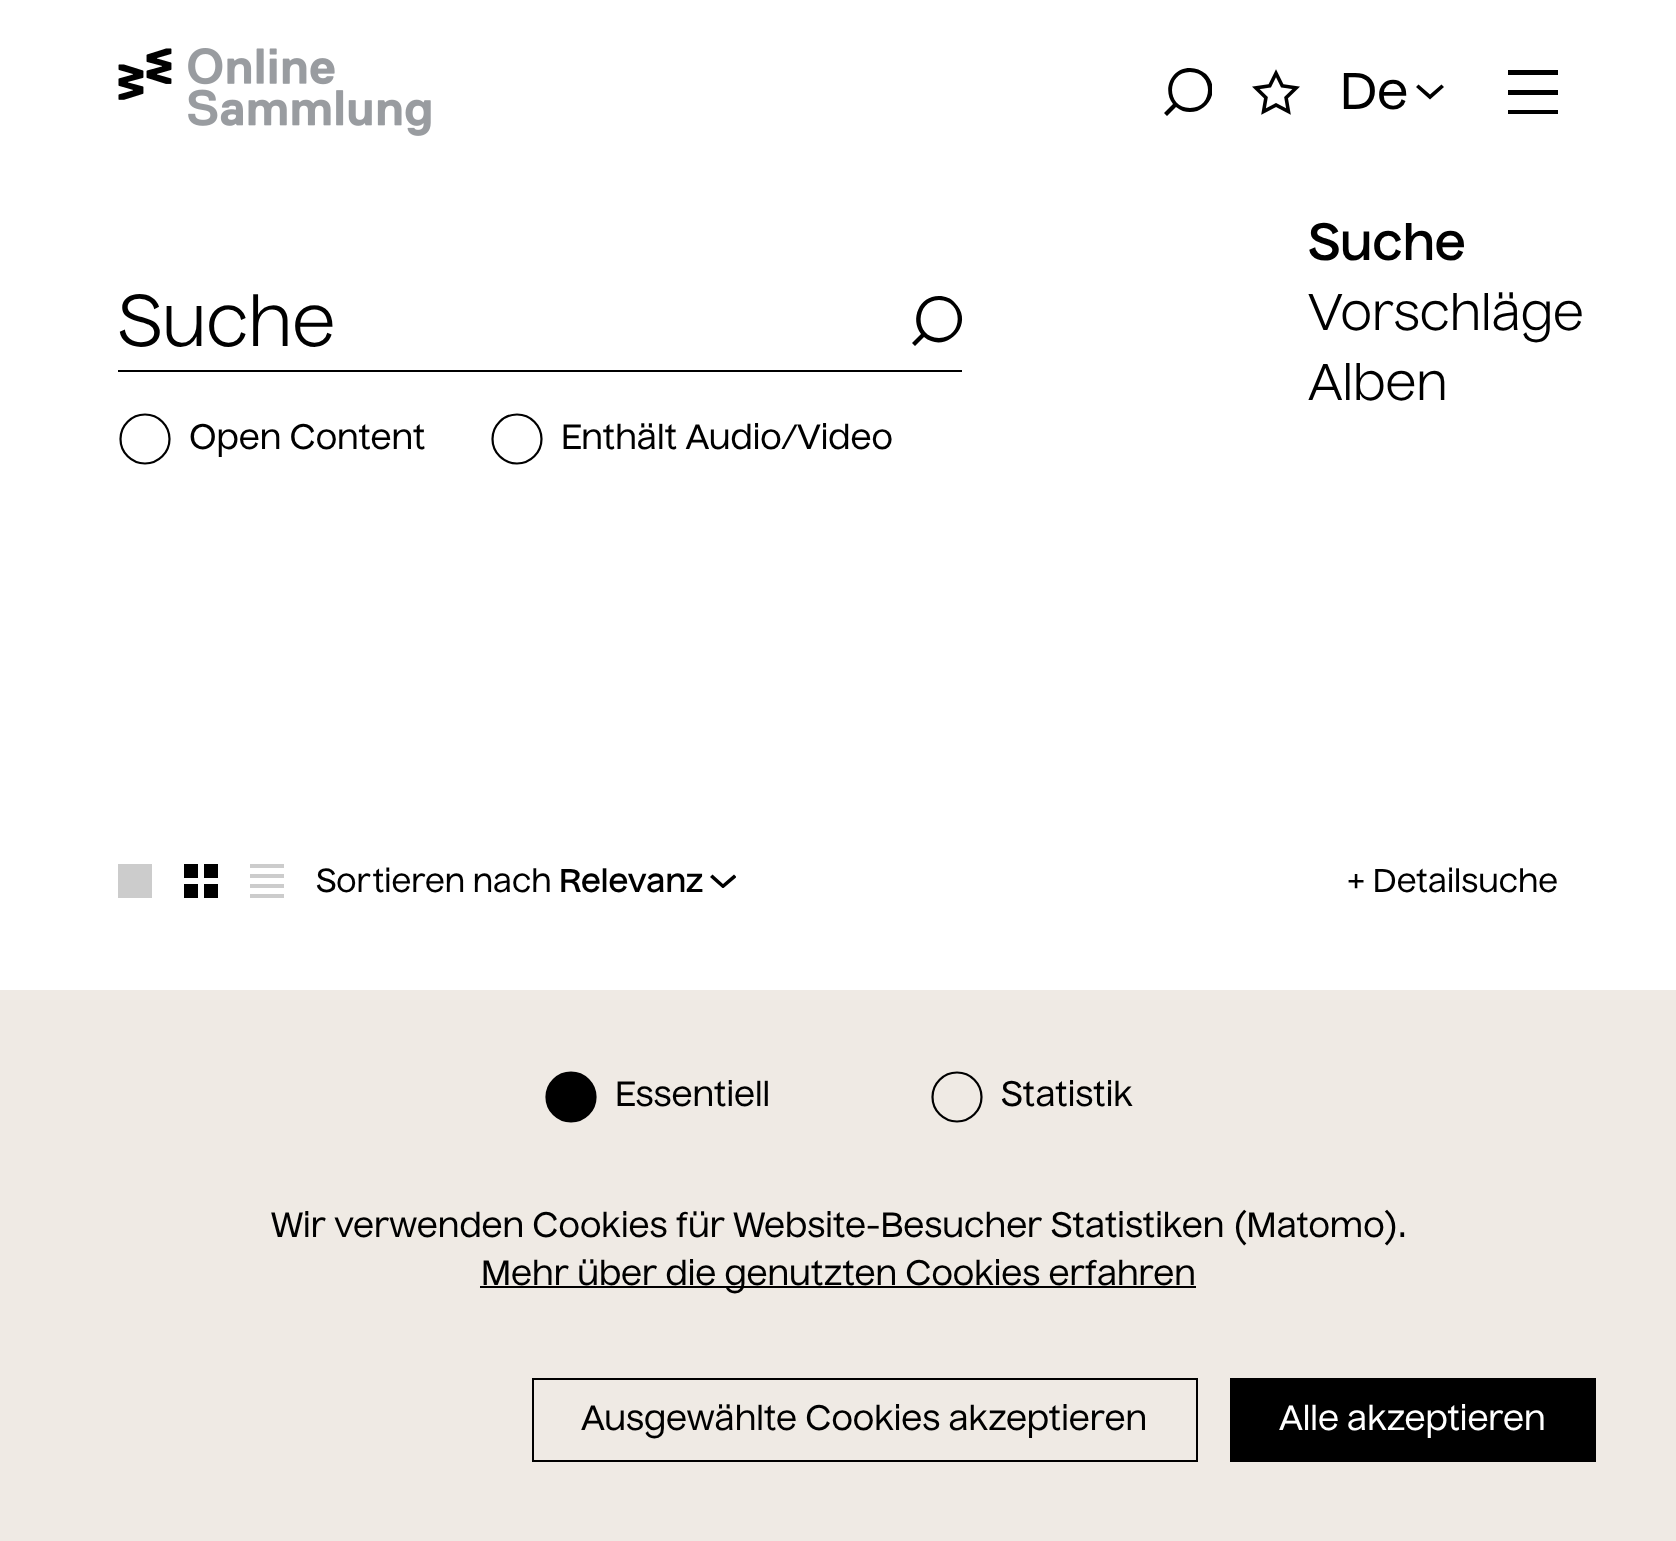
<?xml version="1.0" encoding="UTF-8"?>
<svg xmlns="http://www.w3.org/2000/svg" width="1676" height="1541">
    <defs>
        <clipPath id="clip1"><rect x="1164" y="68" width="48" height="48"/></clipPath>
        <clipPath id="clip2"><rect x="1508" y="70" width="50" height="44"/></clipPath>
        <clipPath id="clip3"><rect x="710" y="874" width="26" height="14"/></clipPath>
    </defs>
    <rect width="100%" height="100%" fill="#FFFFFF"/>
    <image x="118" y="48" width="313" height="88" href="img_01.png"/>
    <g clip-path="url(#clip1)">
        <path d="M 1190 68 C 1171 68 1162 90 1173 104 L 1164 113 L 1167 116 L 1176 107 C 1197 124 1226 95 1206 74 C 1201 70 1196 68 1190 68 M 1190 108 C 1166 108 1166 72 1190 72 C 1214 72 1214 108 1190 108" fill="#000000"/>
    </g>
    <image x="1252" y="69" width="48" height="46" href="img_02.png"/>
    <text x="1340" y="109" font-family="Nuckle" font-size="50" fill="#000000">De</text>
    <path d="M 1418.5 84.5 L 1430 94.5 L 1441.5 84.5 L 1444 87 L 1430 99.5 L 1416 87 Z" fill="#000000"/>
    <g clip-path="url(#clip2)">
        <path d="M 1558 75 H 1508 V 70 H 1558 Z M 1558 115 H 1508 V 110 H 1558 Z M 1558 95 H 1508 V 90 H 1558 Z" fill="#000000"/>
    </g>
    <rect x="118" y="370" width="844" height="2" fill="#000000"/>
    <text x="118" y="346" font-family="Nuckle" font-size="70" font-weight="500" fill="#000000">Suche</text>
    <path d="M 939 296 C 919 296 910 319 921 334 L 912 343 L 915 346 L 924 337 C 946 355 976 324 955 303 C 951 298 945 296 939 296 M 939 338 C 914 338 915 300 939 300 C 964 300 964 338 939 338" fill="#000000"/>
    <circle cx="145" cy="439" r="24.5" fill="none" stroke="#000000" stroke-width="2.2"/>
    <text x="189" y="449" font-family="Nuckle" font-size="34" fill="#000000">Open Content</text>
    <circle cx="517" cy="439" r="24.5" fill="none" stroke="#000000" stroke-width="2.2"/>
    <text x="561" y="449" font-family="Nuckle" font-size="34" fill="#000000">Enthält Audio/Video</text>
    <text x="1308" y="260" font-family="Nuckle" font-size="50" font-weight="700" fill="#000000">Suche</text>
    <text font-family="Nuckle" font-size="50" font-weight="500" fill="#000000">
        <tspan x="1308" y="330">Vorschläge</tspan>
        <tspan x="1308" y="400">Alben</tspan>
    </text>
    <rect x="118" y="864" width="34" height="34" fill="#CCCCCC"/>
    <rect x="184" y="864" width="14" height="14" fill="#000000"/>
    <rect x="204" y="864" width="14" height="14" fill="#000000"/>
    <rect x="184" y="884" width="14" height="14" fill="#000000"/>
    <rect x="204" y="884" width="14" height="14" fill="#000000"/>
    <rect x="250" y="864" width="34" height="4" fill="#CCCCCC"/>
    <rect x="250" y="874" width="34" height="4" fill="#CCCCCC"/>
    <rect x="250" y="884" width="34" height="4" fill="#CCCCCC"/>
    <rect x="250" y="894" width="34" height="4" fill="#CCCCCC"/>
    <text x="316" y="892" font-family="Nuckle" font-size="32" fill="#000000">Sortieren nach</text>
    <text x="559" y="892" font-family="Nuckle" font-size="32" font-weight="700" fill="#000000">Relevanz</text>
    <g clip-path="url(#clip3)">
        <path d="M 712.5 874.5 L 723 884 L 734 874.5 L 736.5 877 L 723 888.5 L 710 877 Z" fill="#000000"/>
    </g>
    <text x="1347" y="892" font-family="Nuckle" font-size="32" fill="#000000">+ Detailsuche</text>
    <rect x="0" y="990" width="1676" height="551" fill="#EFEAE4"/>
    <circle cx="571" cy="1097" r="24.5" fill="#000000" stroke="#000000" stroke-width="2.2"/>
    <text x="615" y="1106" font-family="Nuckle" font-size="34" fill="#000000">Essentiell</text>
    <circle cx="957" cy="1097" r="24.5" fill="none" stroke="#000000" stroke-width="2.2"/>
    <text x="1001" y="1106" font-family="Nuckle" font-size="34" fill="#000000">Statistik</text>
    <text x="271" y="1237" font-family="Nuckle" font-size="34" fill="#000000">Wir verwenden Cookies für Website-Besucher Statistiken (Matomo).</text>
    <rect x="480" y="1286" width="716" height="2" fill="#000000"/>
    <text x="481" y="1285" font-family="Nuckle" font-size="34" fill="#000000">Mehr über die genutzten Cookies erfahren</text>
    <rect x="533" y="1379" width="664" height="82" fill="none" stroke="#000000" stroke-width="2"/>
    <text x="581" y="1430" font-family="Nuckle" font-size="34" fill="#000000">Ausgewählte Cookies akzeptieren</text>
    <rect x="1230" y="1378" width="366" height="84" fill="#000000"/>
    <text x="1279" y="1430" font-family="Nuckle" font-size="34" fill="#FFFFFF">Alle akzeptieren</text>
</svg>
